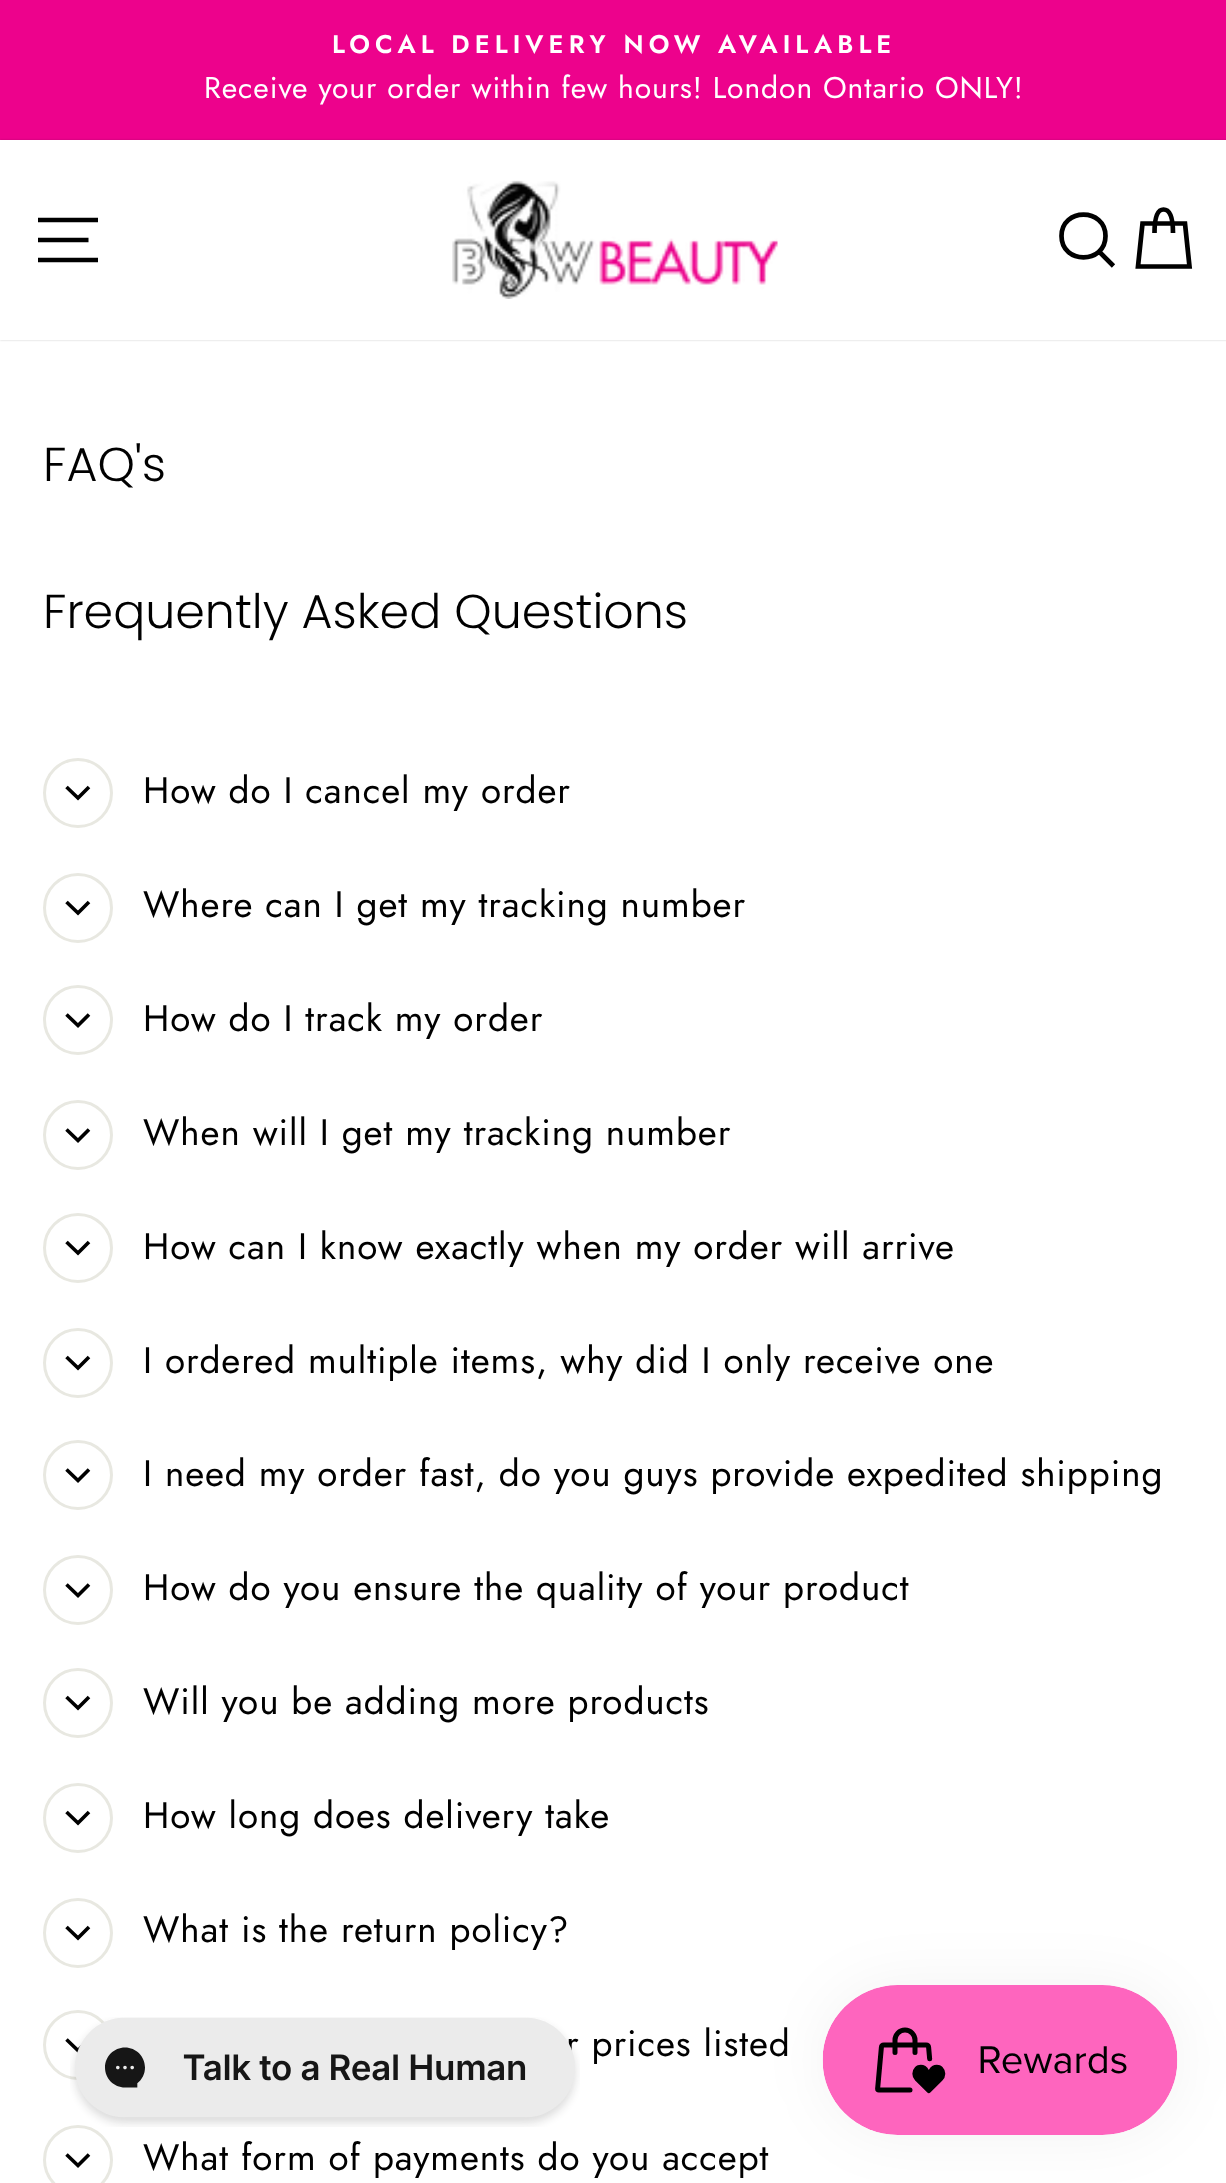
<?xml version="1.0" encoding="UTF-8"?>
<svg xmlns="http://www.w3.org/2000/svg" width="1226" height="2183">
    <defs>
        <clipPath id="clip1"><path d="M 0 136 H 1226 V 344 H 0 Z M 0 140 H 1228 V 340 H 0 Z" clip-rule="evenodd"/></clipPath>
        <filter id="blur1" x="-50%" y="-200%" width="200%" height="500%"><feGaussianBlur stdDeviation="1"/></filter>
        <filter id="blur2" x="-50%" y="-200%" width="200%" height="500%"><feGaussianBlur stdDeviation="31"/></filter>
    </defs>
    <rect width="100%" height="100%" fill="#FFFFFF"/>
    <rect x="0" y="0" width="1226" height="140" fill="#ED028C"/>
    <text x="332" y="53" font-family="Jost" font-size="25.5" font-weight="600" letter-spacing="5.1" fill="#FFFFFF">LOCAL DELIVERY NOW AVAILABLE</text>
    <text x="204" y="98" font-family="Jost" font-size="30" letter-spacing="0.92" fill="#FFFFFF">Receive your order within few hours! London Ontario ONLY!</text>
    <g clip-path="url(#clip1)">
        <rect x="0" y="140" width="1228" height="200" fill="#000000" fill-opacity="0.2" filter="url(#blur1)"/>
    </g>
    <path d="M 38 220 H 98 M 38 240 H 88.5 M 38 260 H 98" fill="none" stroke="#000000" stroke-width="4.7"/>
    <image x="452" y="180" width="326" height="119" href="img_01.png"/>
    <path d="M 1105.5 236 C 1105.5 264.5 1061.5 264.5 1061.5 236 C 1061.5 207.5 1105.5 207.5 1105.5 236 Z M 1113.5 266 L 1099 251.5" fill="none" stroke="#000000" stroke-width="4.7"/>
    <path d="M 1154.5 233 C 1154.5 214.5 1158.5 209.5 1163.5 209.5 C 1169 209.5 1173 214.5 1173 233 M 1142.5 223.5 H 1185 L 1189.5 266.5 H 1138 Z" fill="none" stroke="#000000" stroke-width="4.7"/>
    <text x="43" y="481" font-family="Poppins" font-size="47.5" font-weight="300" fill="#000000">FAQ's</text>
    <text x="43" y="628" font-family="Poppins" font-size="47.5" font-weight="300" fill="#000000">Frequently Asked Questions</text>
    <circle cx="78" cy="793" r="33.5" fill="none" stroke="#E8E8E1" stroke-width="3"/>
    <path d="M 66.5 787 L 78 798 L 89 787" fill="none" stroke="#000000" stroke-width="3.6"/>
    <text x="143" y="803" font-family="Jost" font-size="36.8" letter-spacing="0.92" fill="#000000">How do I cancel my order</text>
    <circle cx="78" cy="908" r="33.5" fill="none" stroke="#E8E8E1" stroke-width="3"/>
    <path d="M 66.5 902 L 78 913 L 89 902" fill="none" stroke="#000000" stroke-width="3.6"/>
    <text x="143" y="917" font-family="Jost" font-size="36.8" letter-spacing="0.92" fill="#000000">Where can I get my tracking number</text>
    <circle cx="78" cy="1020" r="33.5" fill="none" stroke="#E8E8E1" stroke-width="3"/>
    <path d="M 66.5 1014.5 L 78 1025.5 L 89 1014.5" fill="none" stroke="#000000" stroke-width="3.6"/>
    <text x="143" y="1031" font-family="Jost" font-size="36.8" letter-spacing="0.92" fill="#000000">How do I track my order</text>
    <circle cx="78" cy="1135" r="33.5" fill="none" stroke="#E8E8E1" stroke-width="3"/>
    <path d="M 66.5 1129.5 L 78 1140.5 L 89 1129.5" fill="none" stroke="#000000" stroke-width="3.6"/>
    <text x="143" y="1145" font-family="Jost" font-size="36.8" letter-spacing="0.92" fill="#000000">When will I get my tracking number</text>
    <circle cx="78" cy="1248" r="33.5" fill="none" stroke="#E8E8E1" stroke-width="3"/>
    <path d="M 66.5 1242 L 78 1253 L 89 1242" fill="none" stroke="#000000" stroke-width="3.6"/>
    <text x="143" y="1259" font-family="Jost" font-size="36.8" letter-spacing="0.92" fill="#000000">How can I know exactly when my order will arrive</text>
    <circle cx="78" cy="1363" r="33.5" fill="none" stroke="#E8E8E1" stroke-width="3"/>
    <path d="M 66.5 1357 L 78 1368 L 89 1357" fill="none" stroke="#000000" stroke-width="3.6"/>
    <text x="143" y="1373" font-family="Jost" font-size="36.8" letter-spacing="0.92" fill="#000000">I ordered multiple items, why did I only receive one</text>
    <circle cx="78" cy="1475" r="33.5" fill="none" stroke="#E8E8E1" stroke-width="3"/>
    <path d="M 66.5 1469.5 L 78 1480.5 L 89 1469.5" fill="none" stroke="#000000" stroke-width="3.6"/>
    <text x="143" y="1486" font-family="Jost" font-size="36.8" letter-spacing="0.92" fill="#000000">I need my order fast, do you guys provide expedited shipping</text>
    <circle cx="78" cy="1590" r="33.5" fill="none" stroke="#E8E8E1" stroke-width="3"/>
    <path d="M 66.5 1584.5 L 78 1595.5 L 89 1584.5" fill="none" stroke="#000000" stroke-width="3.6"/>
    <text x="143" y="1600" font-family="Jost" font-size="36.8" letter-spacing="0.92" fill="#000000">How do you ensure the quality of your product</text>
    <circle cx="78" cy="1703" r="33.5" fill="none" stroke="#E8E8E1" stroke-width="3"/>
    <path d="M 66.5 1697 L 78 1708 L 89 1697" fill="none" stroke="#000000" stroke-width="3.6"/>
    <text x="143" y="1714" font-family="Jost" font-size="36.8" letter-spacing="0.92" fill="#000000">Will you be adding more products</text>
    <circle cx="78" cy="1818" r="33.5" fill="none" stroke="#E8E8E1" stroke-width="3"/>
    <path d="M 66.5 1812 L 78 1823 L 89 1812" fill="none" stroke="#000000" stroke-width="3.6"/>
    <text x="143" y="1828" font-family="Jost" font-size="36.8" letter-spacing="0.92" fill="#000000">How long does delivery take</text>
    <circle cx="78" cy="1933" r="33.5" fill="none" stroke="#E8E8E1" stroke-width="3"/>
    <path d="M 66.5 1927 L 78 1938 L 89 1927" fill="none" stroke="#000000" stroke-width="3.6"/>
    <text x="143" y="1942" font-family="Jost" font-size="36.8" letter-spacing="0.92" fill="#000000">What is the return policy?</text>
    <circle cx="78" cy="2045" r="33.5" fill="none" stroke="#E8E8E1" stroke-width="3"/>
    <path d="M 66.5 2039.5 L 78 2050.5 L 89 2039.5" fill="none" stroke="#000000" stroke-width="3.6"/>
    <text x="566" y="2056" font-family="Jost" font-size="36.8" letter-spacing="0.92" fill="#000000">r prices listed</text>
    <circle cx="78" cy="2160" r="33.5" fill="none" stroke="#E8E8E1" stroke-width="3"/>
    <path d="M 66.5 2154.5 L 78 2165.5 L 89 2154.5" fill="none" stroke="#000000" stroke-width="3.6"/>
    <text x="143" y="2170" font-family="Jost" font-size="36.8" letter-spacing="0.92" fill="#000000">What form of payments do you accept</text>
    <image x="70" y="2017" width="510" height="110" href="img_02.png"/>
    <rect x="823" y="1985" width="355" height="150" rx="75" fill="#000000" fill-opacity="0.05" filter="url(#blur2)"/>
    <image x="822" y="1985" width="356" height="150" href="img_03.png"/>
</svg>
